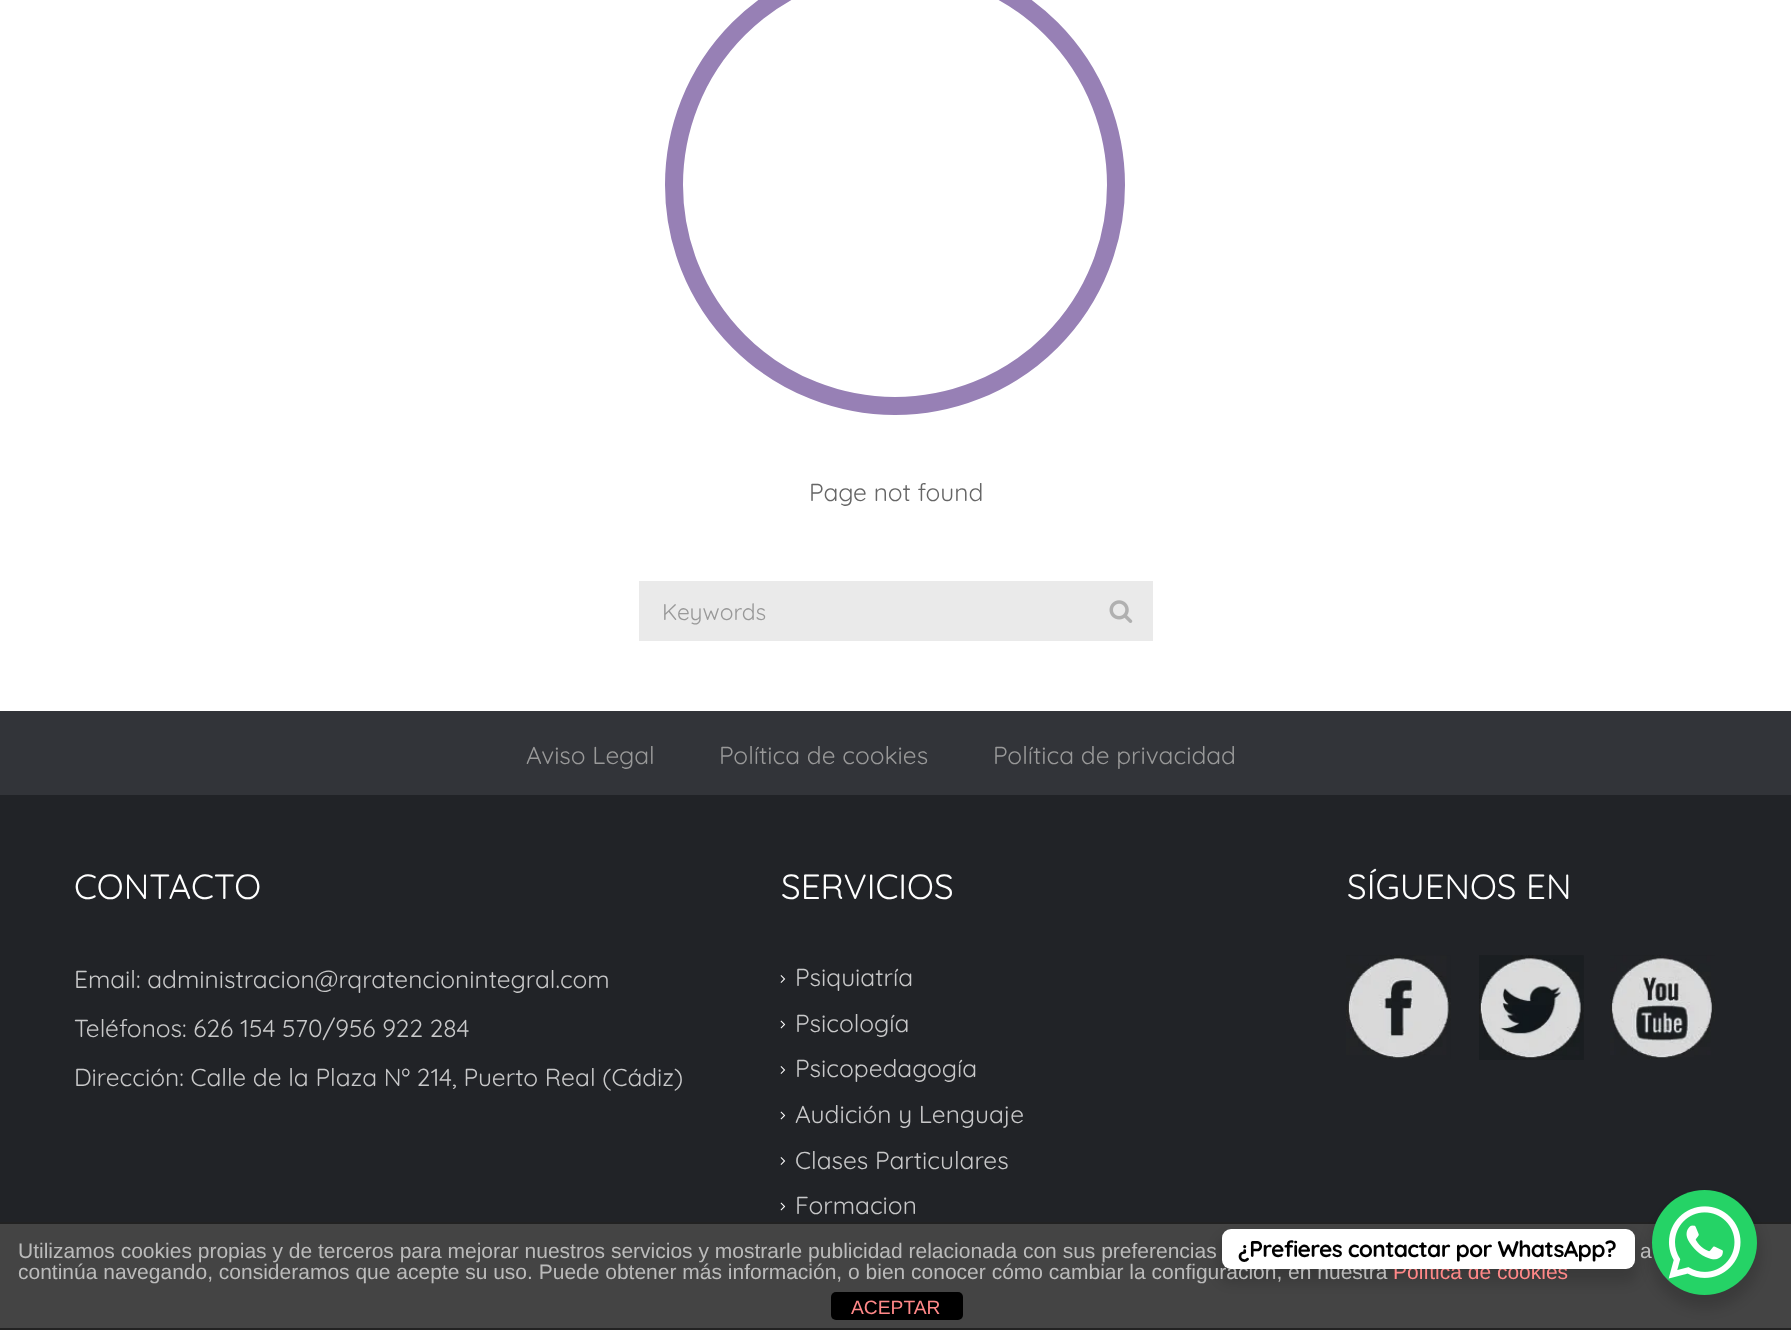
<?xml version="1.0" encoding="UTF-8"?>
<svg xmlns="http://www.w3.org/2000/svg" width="1791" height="1330">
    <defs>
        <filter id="blur1" x="-50%" y="-200%" width="200%" height="500%"><feGaussianBlur stdDeviation="7"/></filter>
    </defs>
    <rect width="100%" height="100%" fill="#FFFFFF"/>
    <circle cx="895" cy="185" r="221" fill="none" stroke="#9780B5" stroke-width="18"/>
    <text x="809" y="501" font-family="Quicksand" font-size="24.5" fill="#666666">Page not found</text>
    <rect x="639" y="581" width="514" height="60" fill="#EAEAEA"/>
    <text x="662" y="620" font-family="Quicksand" font-size="22.75" fill="#999999">Keywords</text>
    <image x="1109" y="600" width="24" height="23" href="img_01.png"/>
    <rect x="0" y="711" width="1791" height="84" fill="#323439"/>
    <text x="526" y="764" font-family="Quicksand" font-size="24.5" fill="#999999">Aviso Legal</text>
    <text x="719" y="764" font-family="Quicksand" font-size="24.5" fill="#999999">Política de cookies</text>
    <text x="993" y="764" font-family="Quicksand" font-size="24.5" fill="#999999">Política de privacidad</text>
    <rect x="0" y="795" width="1791" height="427" fill="#212327"/>
    <text x="74" y="899" font-family="Quicksand" font-size="35" fill="#FFFFFF">CONTACTO</text>
    <text x="74" y="988" font-family="Quicksand" font-size="24.5" fill="#C8C8C9">Email: administracion@rqratencionintegral.com</text>
    <text x="74" y="1037" font-family="Quicksand" font-size="24.5" fill="#C8C8C9">Teléfonos: 626 154 570/956 922 284</text>
    <text x="74" y="1086" font-family="Quicksand" font-size="24.5" fill="#C8C8C9">Dirección: Calle de la Plaza Nº 214, Puerto Real (Cádiz)</text>
    <text x="781" y="899" font-family="Quicksand" font-size="35" fill="#FFFFFF">SERVICIOS</text>
    <image x="780" y="975" width="6" height="8" href="img_02.png"/>
    <text x="795" y="986" font-family="Quicksand" font-size="24.5" fill="#C8C8C9">Psiquiatría</text>
    <image x="780" y="1020" width="6" height="9" href="img_03.png"/>
    <text x="795" y="1032" font-family="Quicksand" font-size="24.5" fill="#C8C8C9">Psicología</text>
    <image x="780" y="1066" width="6" height="8" href="img_02.png"/>
    <text x="795" y="1077" font-family="Quicksand" font-size="24.5" fill="#C8C8C9">Psicopedagogía</text>
    <image x="780" y="1111" width="6" height="9" href="img_03.png"/>
    <text x="795" y="1123" font-family="Quicksand" font-size="24.5" fill="#C8C8C9">Audición y Lenguaje</text>
    <image x="780" y="1157" width="6" height="8" href="img_02.png"/>
    <text x="795" y="1169" font-family="Quicksand" font-size="24.5" fill="#C8C8C9">Clases Particulares</text>
    <image x="780" y="1202" width="6" height="9" href="img_03.png"/>
    <text x="795" y="1214" font-family="Quicksand" font-size="24.5" fill="#C8C8C9">Formacion</text>
    <text x="1347" y="899" font-family="Quicksand" font-size="35" fill="#FFFFFF">SÍGUENOS EN</text>
    <image x="1346" y="955" width="105" height="104" href="img_04.png"/>
    <image x="1479" y="955" width="105" height="105" href="img_05.png"/>
    <image x="1610" y="955" width="105" height="104" href="img_06.png"/>
    <rect x="0" y="1224" width="1791" height="104" fill="#444444"/>
    <rect x="0" y="1222" width="1791" height="2" fill="#222222"/>
    <rect x="0" y="1328" width="1791" height="2" fill="#222222"/>
    <rect x="1649" y="1197" width="112" height="112" rx="56" fill="#000000" fill-opacity="0.15" filter="url(#blur1)"/>
    <circle cx="1704.5" cy="1242.5" r="52.5" fill="#25D366"/>
    <rect x="1218" y="1236" width="420" height="47" rx="12" fill="#000000" fill-opacity="0.15" filter="url(#blur1)"/>
    <text x="18" y="1279" font-family="Liberation Sans" font-size="21" fill="#BBBBBB">continúa navegando, consideramos que acepte su uso. Puede obtener más información, o bien conocer cómo cambiar la configuración, en nuestra</text>
    <text x="1393" y="1279" font-family="Liberation Sans" font-size="21" fill="#FF8888">Política de cookies</text>
    <rect x="1222" y="1229" width="413" height="40" rx="9" fill="#FFFFFF"/>
    <text x="1238" y="1257" font-family="Quicksand" font-size="22.75" font-weight="700" letter-spacing="-0.7" fill="#000000">¿Prefieres contactar por WhatsApp?</text>
    <image x="1668" y="1206" width="73" height="73" href="img_07.png"/>
    <text x="18" y="1258" font-family="Liberation Sans" font-size="21" fill="#BBBBBB">Utilizamos cookies propias y de terceros para mejorar nuestros servicios y mostrarle publicidad relacionada con sus preferencias</text>
    <text x="1640" y="1258" font-family="Liberation Sans" font-size="21" fill="#BBBBBB">a</text>
    <rect x="831" y="1292" width="132" height="28" rx="5" fill="#000000"/>
    <text x="851" y="1314" font-family="Liberation Sans" font-size="19.25" fill="#FF8888">ACEPTAR</text>
</svg>
